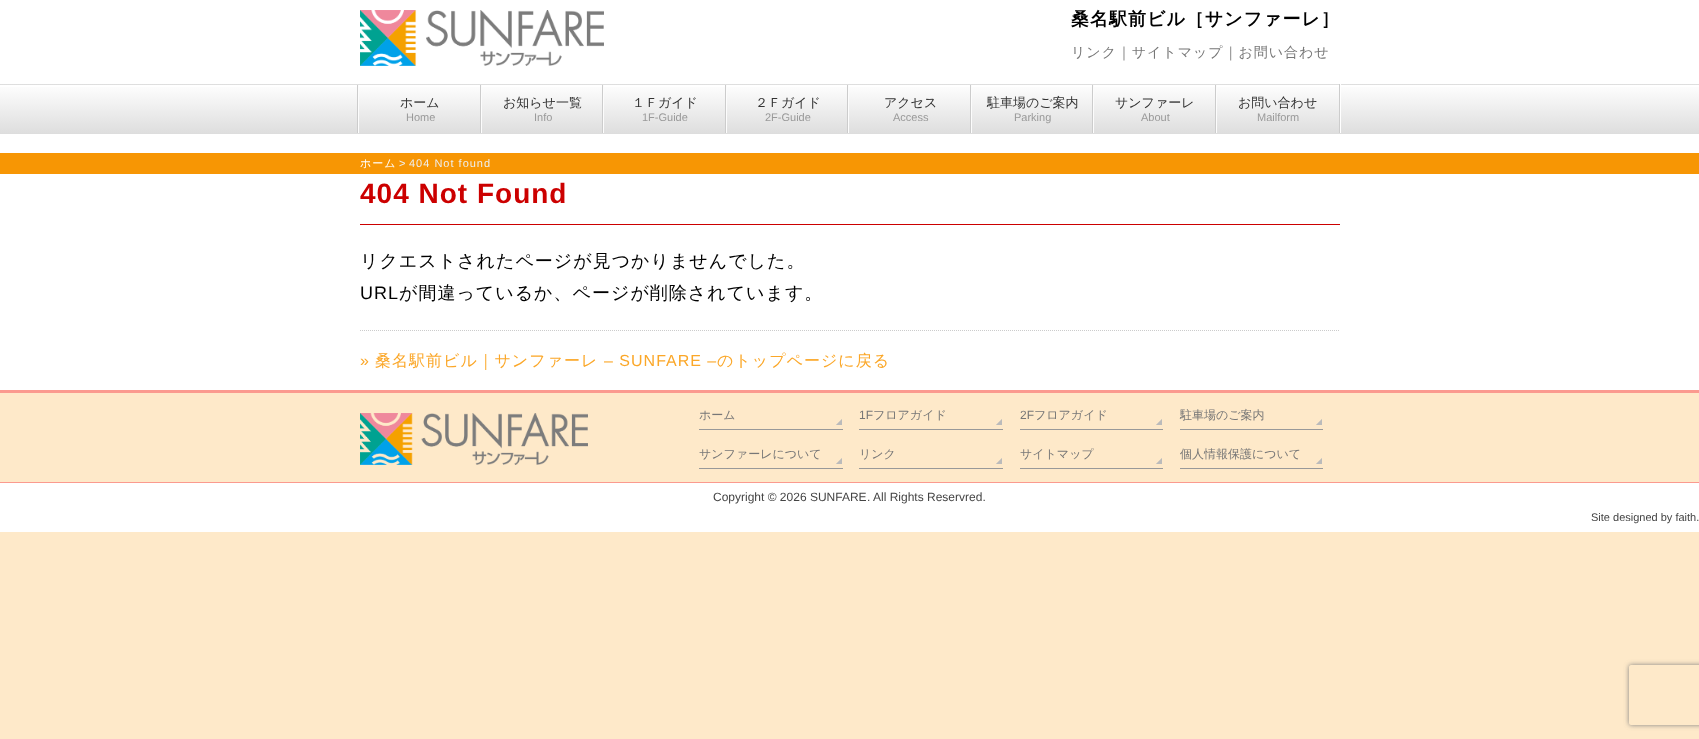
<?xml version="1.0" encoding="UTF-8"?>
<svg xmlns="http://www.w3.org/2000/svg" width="1699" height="739">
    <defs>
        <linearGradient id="g1" gradientUnits="userSpaceOnUse" x1="850" y1="37" x2="850" y2="85"><stop offset="0" stop-color="#FEFEFE"/><stop offset="1" stop-color="#DEDEDE"/></linearGradient>
        <linearGradient id="g2" gradientUnits="userSpaceOnUse" x1="850" y1="85" x2="850" y2="133"><stop offset="0" stop-color="#FEFEFE"/><stop offset="1" stop-color="#DEDEDE"/></linearGradient>
        <clipPath id="clip1"><path d="M 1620 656 H 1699 V 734 H 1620 Z M 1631 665 H 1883 C 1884 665 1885 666 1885 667 V 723 C 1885 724 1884 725 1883 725 H 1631 C 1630 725 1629 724 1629 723 V 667 C 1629 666 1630 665 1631 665 Z" clip-rule="evenodd"/></clipPath>
        <filter id="blur1" x="-50%" y="-200%" width="200%" height="500%"><feGaussianBlur stdDeviation="2.5"/></filter>
    </defs>
    <rect width="100%" height="100%" fill="#FEE9C9"/>
    <rect x="0" y="0" width="1699" height="532" fill="#FFFFFF"/>
    <image x="360" y="10" width="244" height="56" href="img_01.png"/>
    <text x="1071" y="25" font-family="WenQuanYi Zen Hei" font-size="18" font-weight="700" letter-spacing="1" fill="#000000">桑名駅前ビル［サンファーレ］</text>
    <text x="1071" y="57" font-family="WenQuanYi Zen Hei" font-size="14" font-weight="500" letter-spacing="1" fill="#777777">リンク｜サイトマップ｜お問い合わせ</text>
    <rect x="0" y="84" width="1699" height="1" fill="url(#g1)"/>
    <rect x="0" y="87" width="1699" height="46" fill="url(#g2)"/>
    <rect x="0" y="133" width="1699" height="1" fill="#DDDDDD"/>
    <rect x="358" y="85" width="1" height="48" fill="#FCFCFC"/>
    <rect x="357" y="85" width="1" height="48" fill="#CCCCCC"/>
    <text x="400" y="107" font-family="WenQuanYi Zen Hei" font-size="13" font-weight="500" fill="#333333">ホーム</text>
    <text x="406" y="121" font-family="Liberation Sans" font-size="11" fill="#999999">Home</text>
    <rect x="481" y="85" width="1" height="48" fill="#FCFCFC"/>
    <rect x="480" y="85" width="1" height="48" fill="#CCCCCC"/>
    <text x="503" y="107" font-family="WenQuanYi Zen Hei" font-size="13" font-weight="500" fill="#333333">お知らせ一覧</text>
    <text x="534" y="121" font-family="Liberation Sans" font-size="11" fill="#999999">Info</text>
    <rect x="603" y="85" width="1" height="48" fill="#FCFCFC"/>
    <rect x="602" y="85" width="1" height="48" fill="#CCCCCC"/>
    <text x="632" y="107" font-family="WenQuanYi Zen Hei" font-size="13" font-weight="500" fill="#333333">１Ｆガイド</text>
    <text x="642" y="121" font-family="Liberation Sans" font-size="11" fill="#999999">1F-Guide</text>
    <rect x="726" y="85" width="1" height="48" fill="#FCFCFC"/>
    <rect x="725" y="85" width="1" height="48" fill="#CCCCCC"/>
    <text x="755" y="107" font-family="WenQuanYi Zen Hei" font-size="13" font-weight="500" fill="#333333">２Ｆガイド</text>
    <text x="765" y="121" font-family="Liberation Sans" font-size="11" fill="#999999">2F-Guide</text>
    <rect x="848" y="85" width="1" height="48" fill="#FCFCFC"/>
    <rect x="847" y="85" width="1" height="48" fill="#CCCCCC"/>
    <text x="884" y="107" font-family="WenQuanYi Zen Hei" font-size="13" font-weight="500" fill="#333333">アクセス</text>
    <text x="893" y="121" font-family="Liberation Sans" font-size="11" fill="#999999">Access</text>
    <rect x="971" y="85" width="1" height="48" fill="#FCFCFC"/>
    <rect x="970" y="85" width="1" height="48" fill="#CCCCCC"/>
    <text x="987" y="107" font-family="WenQuanYi Zen Hei" font-size="13" font-weight="500" fill="#333333">駐車場のご案内</text>
    <text x="1014" y="121" font-family="Liberation Sans" font-size="11" fill="#999999">Parking</text>
    <rect x="1093" y="85" width="1" height="48" fill="#FCFCFC"/>
    <rect x="1092" y="85" width="1" height="48" fill="#CCCCCC"/>
    <text x="1115" y="107" font-family="WenQuanYi Zen Hei" font-size="13" font-weight="500" fill="#333333">サンファーレ</text>
    <text x="1141" y="121" font-family="Liberation Sans" font-size="11" fill="#999999">About</text>
    <rect x="1340" y="84" width="1" height="49" fill="#FFFFFF"/>
    <rect x="1339" y="84" width="1" height="49" fill="#CCCCCC"/>
    <rect x="1216" y="85" width="1" height="48" fill="#FCFCFC"/>
    <rect x="1215" y="85" width="1" height="48" fill="#CCCCCC"/>
    <text x="1238" y="107" font-family="WenQuanYi Zen Hei" font-size="13" font-weight="500" fill="#333333">お問い合わせ</text>
    <text x="1257" y="121" font-family="Liberation Sans" font-size="11" fill="#999999">Mailform</text>
    <rect x="0" y="153" width="1699" height="21" fill="#F79604"/>
    <text x="360" y="167" font-family="WenQuanYi Zen Hei" font-size="11" font-weight="500" letter-spacing="1" fill="#FFFFFF">ホーム</text>
    <text x="399" y="167" font-family="Liberation Sans" font-size="11" letter-spacing="1" fill="#EEEEEE">&gt;</text>
    <text x="409" y="167" font-family="Liberation Sans" font-size="11" letter-spacing="1" fill="#EEEEEE">404 Not found</text>
    <rect x="360" y="224" width="980" height="1" fill="#CC0000"/>
    <text x="360" y="203" font-family="Liberation Sans" font-size="28" font-weight="700" letter-spacing="1" fill="#CC0000">404 Not Found</text>
    <text x="360" y="267" font-family="WenQuanYi Zen Hei" font-size="18" font-weight="500" letter-spacing="1" fill="#000000">リクエストされたページが見つかりませんでした。</text>
    <text x="360" y="299" font-family="Liberation Sans" font-size="18" letter-spacing="1" fill="#000000">URL</text>
    <text x="399" y="299" font-family="WenQuanYi Zen Hei" font-size="18" font-weight="500" letter-spacing="1" fill="#000000">が間違っているか、ページが削除されています。</text>
    <path d="M 360 330.5 H 1340" fill="none" stroke="#CCCCCC" stroke-dasharray="1 1"/>
    <text x="360" y="366" font-family="Liberation Sans" font-size="16" letter-spacing="1" fill="#FBA728">»</text>
    <text x="375" y="366" font-family="WenQuanYi Zen Hei" font-size="16" font-weight="500" letter-spacing="1" fill="#FBA728">桑名駅前ビル｜サンファーレ</text>
    <text x="604" y="366" font-family="Liberation Sans" font-size="16" letter-spacing="1" fill="#FBA728">– SUNFARE –</text>
    <text x="717" y="366" font-family="WenQuanYi Zen Hei" font-size="16" font-weight="500" letter-spacing="1" fill="#FBA728">のトップページに戻る</text>
    <rect x="0" y="393" width="1699" height="89" fill="#FEE9C9"/>
    <rect x="0" y="390" width="1699" height="3" fill="#FB9A8F"/>
    <image x="360" y="413" width="228" height="52" href="img_02.png"/>
    <image x="836" y="419" width="6" height="6" href="img_03.png"/>
    <rect x="699" y="429" width="144" height="1" fill="#999999"/>
    <text x="699" y="419" font-family="WenQuanYi Zen Hei" font-size="12" font-weight="500" fill="#777777">ホーム</text>
    <image x="996" y="419" width="6" height="6" href="img_03.png"/>
    <rect x="859" y="429" width="144" height="1" fill="#999999"/>
    <text x="859" y="419" font-family="Liberation Sans" font-size="12" fill="#777777">1F</text>
    <text x="873" y="419" font-family="WenQuanYi Zen Hei" font-size="12" font-weight="500" fill="#777777">フロアガイド</text>
    <image x="1156" y="419" width="6" height="6" href="img_03.png"/>
    <rect x="1020" y="429" width="143" height="1" fill="#999999"/>
    <text x="1020" y="419" font-family="Liberation Sans" font-size="12" fill="#777777">2F</text>
    <text x="1034" y="419" font-family="WenQuanYi Zen Hei" font-size="12" font-weight="500" fill="#777777">フロアガイド</text>
    <image x="1316" y="419" width="6" height="6" href="img_03.png"/>
    <rect x="1180" y="429" width="143" height="1" fill="#999999"/>
    <text x="1180" y="419" font-family="WenQuanYi Zen Hei" font-size="12" font-weight="500" fill="#777777">駐車場のご案内</text>
    <image x="836" y="458" width="6" height="6" href="img_03.png"/>
    <rect x="699" y="468" width="144" height="1" fill="#999999"/>
    <text x="699" y="458" font-family="WenQuanYi Zen Hei" font-size="12" font-weight="500" fill="#777777">サンファーレについて</text>
    <image x="996" y="458" width="6" height="6" href="img_03.png"/>
    <rect x="859" y="468" width="144" height="1" fill="#999999"/>
    <text x="859" y="458" font-family="WenQuanYi Zen Hei" font-size="12" font-weight="500" fill="#777777">リンク</text>
    <image x="1156" y="458" width="6" height="6" href="img_03.png"/>
    <rect x="1020" y="468" width="143" height="1" fill="#999999"/>
    <text x="1020" y="458" font-family="WenQuanYi Zen Hei" font-size="12" font-weight="500" fill="#777777">サイトマップ</text>
    <image x="1316" y="458" width="6" height="6" href="img_03.png"/>
    <rect x="1180" y="468" width="143" height="1" fill="#999999"/>
    <text x="1180" y="458" font-family="WenQuanYi Zen Hei" font-size="12" font-weight="500" fill="#777777">個人情報保護について</text>
    <rect x="0" y="482" width="1699" height="1" fill="#FB9A8F"/>
    <text x="713" y="501" font-family="Liberation Sans" font-size="12" fill="#444444">Copyright © 2026 SUNFARE</text>
    <text x="867" y="501" font-family="Liberation Sans" font-size="12" fill="#444444">. All Rights Reservred.</text>
    <text x="1591" y="521" font-family="Liberation Sans" font-size="11" fill="#444444">Site designed by faith.</text>
    <g clip-path="url(#clip1)">
        <rect x="1629" y="665" width="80" height="60" rx="2" fill="#808080" filter="url(#blur1)"/>
    </g>
</svg>
